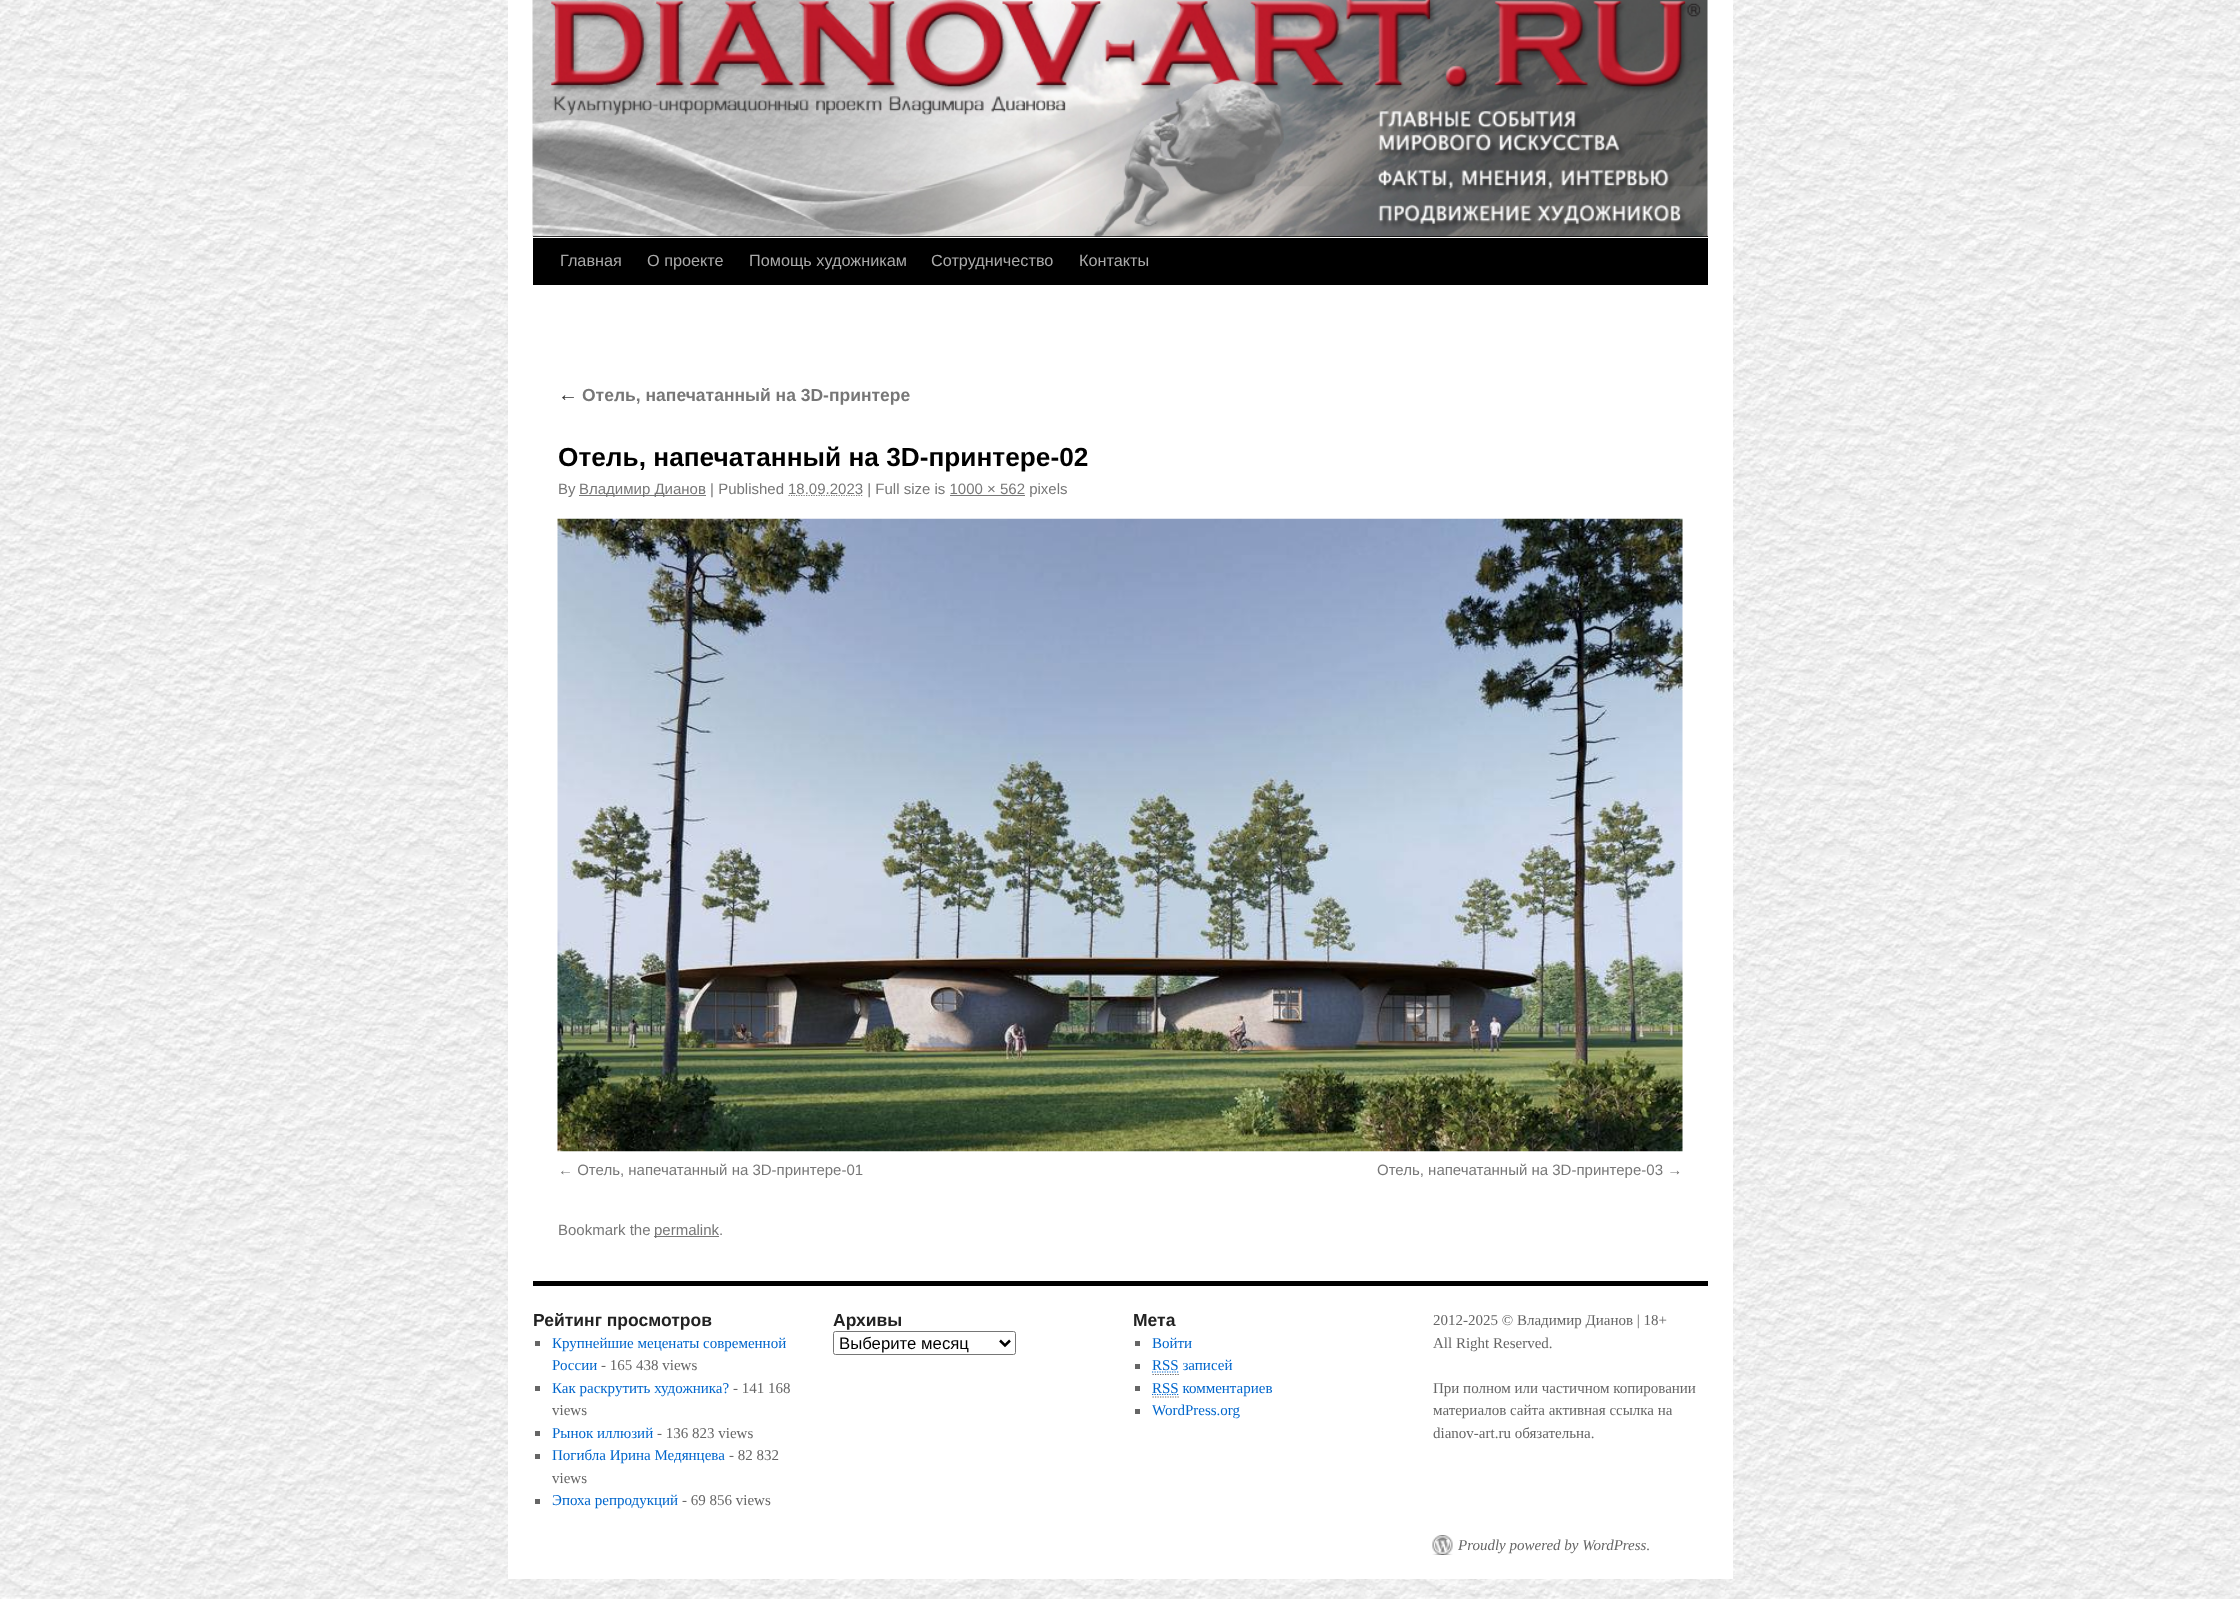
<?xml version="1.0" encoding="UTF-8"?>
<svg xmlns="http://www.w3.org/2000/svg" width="2240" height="1599">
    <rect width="100%" height="100%" fill="#FFFFFF"/>
    <image x="0" y="0" width="2240" height="1599" href="img_01.png"/>
    <rect x="508" y="0" width="1225" height="1579" fill="#FFFFFF"/>
    <rect x="533" y="236" width="1175" height="1" fill="#000000"/>
    <image x="532" y="0" width="1176" height="237" href="img_02.png"/>
    <rect x="533" y="238" width="1175" height="47" fill="#000000"/>
    <text x="560" y="266" font-family="Liberation Sans" font-size="16.25" fill="#AAAAAA">Главная</text>
    <text x="647" y="266" font-family="Liberation Sans" font-size="16.25" fill="#AAAAAA">О проекте</text>
    <text x="749" y="266" font-family="Liberation Sans" font-size="16.25" fill="#AAAAAA">Помощь художникам</text>
    <text x="931" y="266" font-family="Liberation Sans" font-size="16.25" fill="#AAAAAA">Сотрудничество</text>
    <text x="1079" y="266" font-family="Liberation Sans" font-size="16.25" fill="#AAAAAA">Контакты</text>
    <text x="558" y="401" font-family="Liberation Serif" font-size="20" font-style="italic" fill="#333333">←</text>
    <text x="582" y="401" font-family="Liberation Sans" font-size="17.5" font-weight="700" fill="#777777">Отель, напечатанный на 3D-принтере</text>
    <text x="558" y="466" font-family="Liberation Sans" font-size="26.25" font-weight="700" fill="#000000">Отель, напечатанный на 3D-принтере-02</text>
    <text x="558" y="494" font-family="Liberation Sans" font-size="15" fill="#777777">By</text>
    <rect x="579" y="495" width="127" height="1" fill="#777777"/>
    <text x="579" y="494" font-family="Liberation Sans" font-size="15" fill="#777777">Владимир Дианов | Published</text>
    <path d="M 788.5 495.5 H 863.5" fill="none" stroke="#777777" stroke-width="1.2" stroke-dasharray="1.25 1.25"/>
    <text x="788" y="494" font-family="Liberation Sans" font-size="15" fill="#777777">18.09.2023 | Full size is 1000 × 562 pixels</text>
    <rect x="950" y="495" width="75" height="1" fill="#777777"/>
    <image x="557" y="518" width="1126" height="634" href="img_03.png"/>
    <text x="558" y="1175" font-family="Liberation Sans" font-size="15" fill="#777777">← Отель, напечатанный на 3D-принтере-01</text>
    <text x="1377" y="1175" font-family="Liberation Sans" font-size="15" fill="#777777">Отель, напечатанный на 3D-принтере-03 →</text>
    <text x="558" y="1235" font-family="Liberation Sans" font-size="15" fill="#777777">Bookmark the</text>
    <rect x="654" y="1236" width="65" height="1" fill="#777777"/>
    <text x="654" y="1235" font-family="Liberation Sans" font-size="15" fill="#777777">permalink.</text>
    <rect x="533" y="1281" width="1175" height="5" fill="#000000"/>
    <text x="533" y="1326" font-family="Liberation Sans" font-size="17.5" font-weight="700" fill="#222222">Рейтинг просмотров</text>
    <rect x="535" y="1341" width="5" height="5" fill="#666666"/>
    <text font-family="Liberation Serif" font-size="15" fill="#0066CC">
        <tspan x="552" y="1348">Крупнейшие меценаты современной</tspan>
        <tspan x="552" y="1370">России</tspan>
    </text>
    <text x="601" y="1370" font-family="Liberation Serif" font-size="15" fill="#666666">- 165 438 views</text>
    <rect x="535" y="1386" width="5" height="5" fill="#666666"/>
    <text x="552" y="1393" font-family="Liberation Serif" font-size="15" fill="#0066CC">Как раскрутить художника?</text>
    <text x="733" y="1393" font-family="Liberation Serif" font-size="15" fill="#666666">- 141 168</text>
    <text x="552" y="1415" font-family="Liberation Serif" font-size="15" fill="#666666">views</text>
    <rect x="535" y="1431" width="5" height="5" fill="#666666"/>
    <text x="552" y="1438" font-family="Liberation Serif" font-size="15" fill="#0066CC">Рынок иллюзий</text>
    <text x="657" y="1438" font-family="Liberation Serif" font-size="15" fill="#666666">- 136 823 views</text>
    <rect x="535" y="1454" width="5" height="5" fill="#666666"/>
    <text x="552" y="1460" font-family="Liberation Serif" font-size="15" fill="#0066CC">Погибла Ирина Медянцева</text>
    <text x="729" y="1460" font-family="Liberation Serif" font-size="15" fill="#666666">- 82 832</text>
    <text x="552" y="1483" font-family="Liberation Serif" font-size="15" fill="#666666">views</text>
    <rect x="535" y="1499" width="5" height="5" fill="#666666"/>
    <text x="552" y="1505" font-family="Liberation Serif" font-size="15" fill="#0066CC">Эпоха репродукций</text>
    <text x="682" y="1505" font-family="Liberation Serif" font-size="15" fill="#666666">- 69 856 views</text>
    <text x="833" y="1326" font-family="Liberation Sans" font-size="17.5" font-weight="700" fill="#222222">Архивы</text>
    <rect x="833.5" y="1331.5" width="182" height="23" rx="2" fill="none" stroke="#767676"/>
    <path d="M 1000 1340.5 L 1005 1345.5 L 1010 1340.5" fill="none" stroke="#000000" stroke-width="2.5"/>
    <text x="839" y="1349" font-family="Liberation Sans" font-size="16.75" fill="#000000">Выберите месяц</text>
    <text x="1133" y="1326" font-family="Liberation Sans" font-size="17.5" font-weight="700" fill="#222222">Мета</text>
    <rect x="1135" y="1341" width="5" height="5" fill="#666666"/>
    <text x="1152" y="1348" font-family="Liberation Serif" font-size="15" fill="#0066CC">Войти</text>
    <rect x="1135" y="1364" width="5" height="5" fill="#666666"/>
    <text x="1152" y="1370" font-family="Liberation Serif" font-size="15" fill="#0066CC">RSS записей</text>
    <path d="M 1152.5 1374.5 H 1179" fill="none" stroke="#666666" stroke-width="1.2" stroke-dasharray="1.25 1.25"/>
    <path d="M 1152 1372 H 1178.5" fill="none" stroke="#0066CC" stroke-width="1.2" stroke-dasharray="1.25 1.25"/>
    <rect x="1135" y="1386" width="5" height="5" fill="#666666"/>
    <path d="M 1152.5 1397 H 1179" fill="none" stroke="#666666" stroke-width="1.2" stroke-dasharray="1.25 1.25"/>
    <path d="M 1152 1394.5 H 1178.5" fill="none" stroke="#0066CC" stroke-width="1.2" stroke-dasharray="1.25 1.25"/>
    <text x="1152" y="1393" font-family="Liberation Serif" font-size="15" fill="#0066CC">RSS комментариев</text>
    <rect x="1135" y="1409" width="5" height="5" fill="#666666"/>
    <text x="1152" y="1415" font-family="Liberation Serif" font-size="15" fill="#0066CC">WordPress.org</text>
    <text font-family="Liberation Serif" font-size="15" fill="#666666">
        <tspan x="1433" y="1325">2012-2025 © Владимир Дианов | 18+</tspan>
        <tspan x="1433" y="1348">All Right Reserved.</tspan>
    </text>
    <text font-family="Liberation Serif" font-size="15" fill="#666666">
        <tspan x="1433" y="1393">При полном или частичном копировании</tspan>
        <tspan x="1433" y="1415">материалов сайта активная ссылка на</tspan>
        <tspan x="1433" y="1438">dianov-art.ru обязательна.</tspan>
    </text>
    <image x="1432" y="1535" width="21" height="20" href="img_04.png"/>
    <text x="1458" y="1550" font-family="Liberation Serif" font-size="15" font-style="italic" fill="#666666">Proudly powered by WordPress.</text>
</svg>
